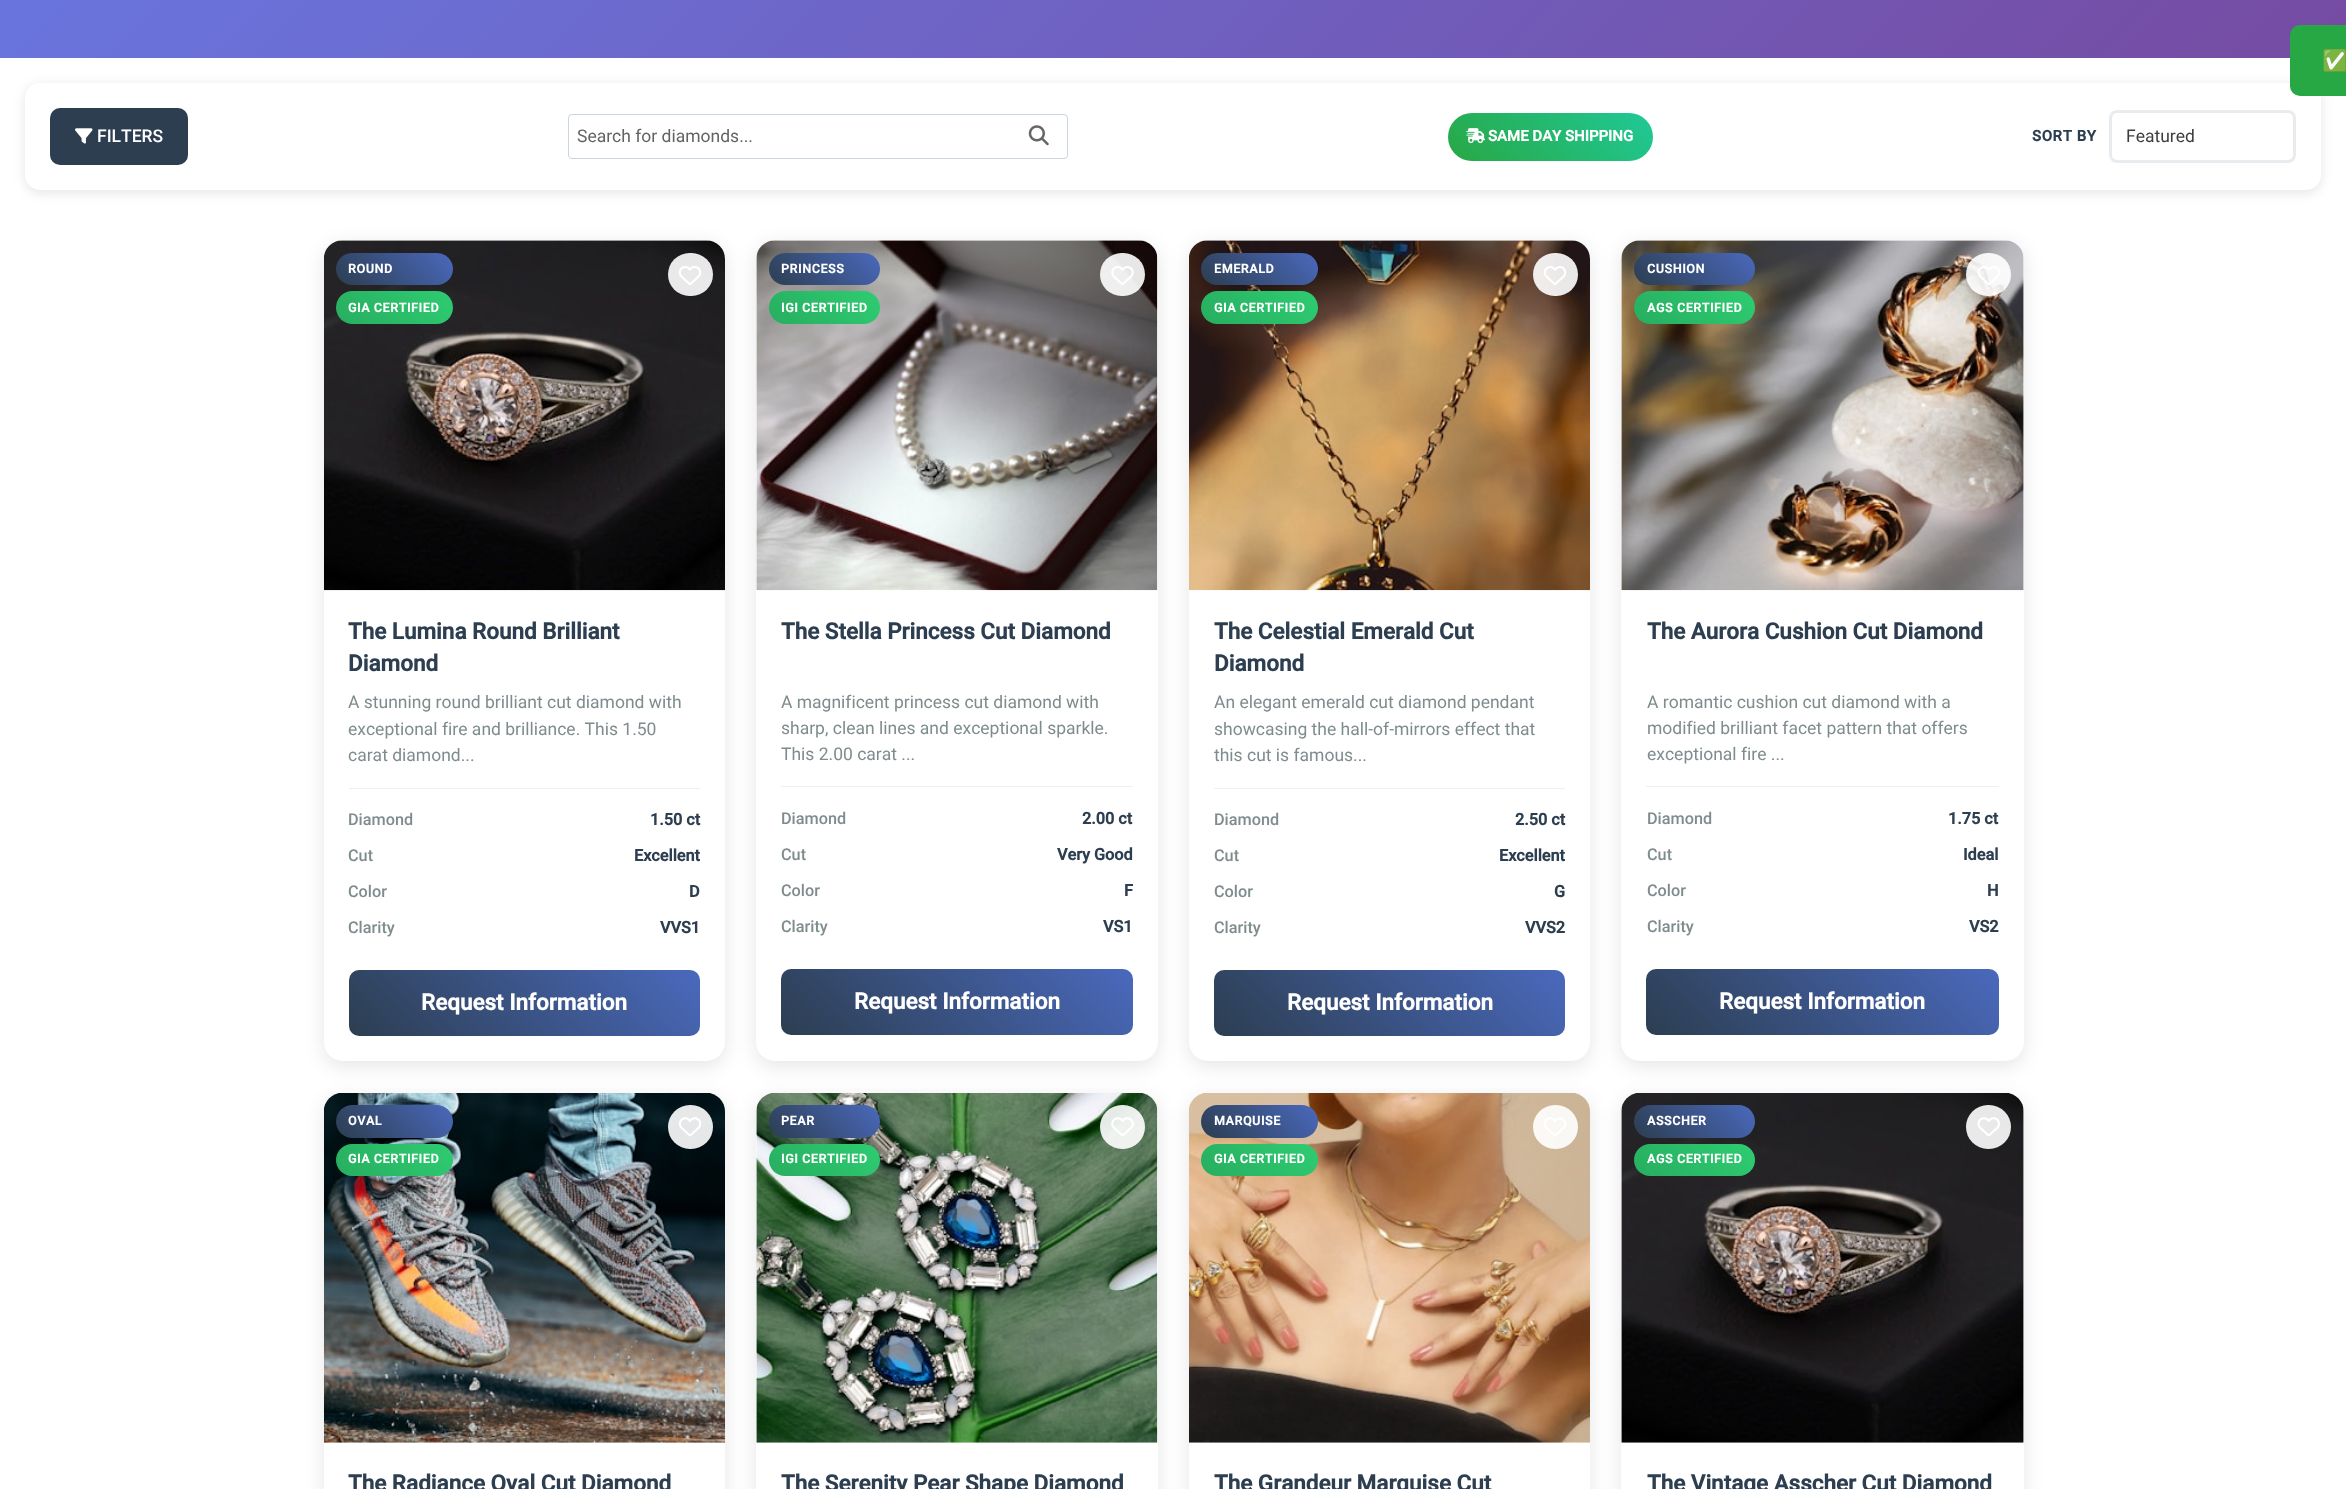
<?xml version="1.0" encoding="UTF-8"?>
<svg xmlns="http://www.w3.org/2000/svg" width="2346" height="1489">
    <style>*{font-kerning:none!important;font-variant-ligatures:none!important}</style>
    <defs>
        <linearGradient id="g1" gradientUnits="userSpaceOnUse" x1="444" y1="-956" x2="1902" y2="502"><stop offset="0" stop-color="#667EEA"/><stop offset="1" stop-color="#764BA2"/></linearGradient>
        <filter id="blur1" x="-50%" y="-200%" width="200%" height="500%"><feGaussianBlur stdDeviation="6"/></filter>
        <linearGradient id="g2" gradientUnits="userSpaceOnUse" x1="1487" y1="200" x2="1613" y2="73"><stop offset="0" stop-color="#28A745"/><stop offset="1" stop-color="#20C997"/></linearGradient>
        <filter id="blur2" x="-50%" y="-200%" width="200%" height="500%"><feGaussianBlur stdDeviation="9.5"/></filter>
        <linearGradient id="g3" gradientUnits="userSpaceOnUse" x1="357" y1="306" x2="432" y2="232"><stop offset="0" stop-color="#2C3E50"/><stop offset="1" stop-color="#4A69BD"/></linearGradient>
        <linearGradient id="g4" gradientUnits="userSpaceOnUse" x1="357" y1="345" x2="432" y2="270"><stop offset="0" stop-color="#27AE60"/><stop offset="1" stop-color="#2ECC71"/></linearGradient>
        <linearGradient id="g5" gradientUnits="userSpaceOnUse" x1="420" y1="1108" x2="629" y2="899"><stop offset="0" stop-color="#2C3E50"/><stop offset="1" stop-color="#4A69BD"/></linearGradient>
        <linearGradient id="g6" gradientUnits="userSpaceOnUse" x1="788" y1="305" x2="860" y2="233"><stop offset="0" stop-color="#2C3E50"/><stop offset="1" stop-color="#4A69BD"/></linearGradient>
        <linearGradient id="g7" gradientUnits="userSpaceOnUse" x1="788" y1="343" x2="860" y2="272"><stop offset="0" stop-color="#27AE60"/><stop offset="1" stop-color="#2ECC71"/></linearGradient>
        <linearGradient id="g8" gradientUnits="userSpaceOnUse" x1="853" y1="1106" x2="1061" y2="898"><stop offset="0" stop-color="#2C3E50"/><stop offset="1" stop-color="#4A69BD"/></linearGradient>
        <linearGradient id="g9" gradientUnits="userSpaceOnUse" x1="1222" y1="306" x2="1297" y2="232"><stop offset="0" stop-color="#2C3E50"/><stop offset="1" stop-color="#4A69BD"/></linearGradient>
        <linearGradient id="g10" gradientUnits="userSpaceOnUse" x1="1222" y1="345" x2="1297" y2="270"><stop offset="0" stop-color="#27AE60"/><stop offset="1" stop-color="#2ECC71"/></linearGradient>
        <linearGradient id="g11" gradientUnits="userSpaceOnUse" x1="1285" y1="1108" x2="1494" y2="899"><stop offset="0" stop-color="#2C3E50"/><stop offset="1" stop-color="#4A69BD"/></linearGradient>
        <linearGradient id="g12" gradientUnits="userSpaceOnUse" x1="1656" y1="307" x2="1733" y2="230"><stop offset="0" stop-color="#2C3E50"/><stop offset="1" stop-color="#4A69BD"/></linearGradient>
        <linearGradient id="g13" gradientUnits="userSpaceOnUse" x1="1656" y1="346" x2="1733" y2="269"><stop offset="0" stop-color="#27AE60"/><stop offset="1" stop-color="#2ECC71"/></linearGradient>
        <linearGradient id="g14" gradientUnits="userSpaceOnUse" x1="1718" y1="1107" x2="1927" y2="897"><stop offset="0" stop-color="#2C3E50"/><stop offset="1" stop-color="#4A69BD"/></linearGradient>
        <clipPath id="clip1"><path d="M 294 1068 H 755 V 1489 H 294 Z M 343 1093 H 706 C 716.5 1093 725 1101.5 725 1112 V 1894 C 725 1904.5 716.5 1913 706 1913 H 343 C 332.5 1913 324 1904.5 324 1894 V 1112 C 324 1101.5 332.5 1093 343 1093 Z" clip-rule="evenodd"/></clipPath>
        <linearGradient id="g15" gradientUnits="userSpaceOnUse" x1="357" y1="1158" x2="432" y2="1084"><stop offset="0" stop-color="#2C3E50"/><stop offset="1" stop-color="#4A69BD"/></linearGradient>
        <linearGradient id="g16" gradientUnits="userSpaceOnUse" x1="357" y1="1197" x2="432" y2="1123"><stop offset="0" stop-color="#27AE60"/><stop offset="1" stop-color="#2ECC71"/></linearGradient>
        <linearGradient id="g17" gradientUnits="userSpaceOnUse" x1="788" y1="1157" x2="860" y2="1085"><stop offset="0" stop-color="#2C3E50"/><stop offset="1" stop-color="#4A69BD"/></linearGradient>
        <linearGradient id="g18" gradientUnits="userSpaceOnUse" x1="788" y1="1196" x2="860" y2="1124"><stop offset="0" stop-color="#27AE60"/><stop offset="1" stop-color="#2ECC71"/></linearGradient>
        <clipPath id="clip2"><path d="M 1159 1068 H 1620 V 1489 H 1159 Z M 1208 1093 H 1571 C 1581.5 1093 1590 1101.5 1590 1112 V 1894 C 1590 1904.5 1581.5 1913 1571 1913 H 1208 C 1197.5 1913 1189 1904.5 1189 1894 V 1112 C 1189 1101.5 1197.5 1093 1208 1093 Z" clip-rule="evenodd"/></clipPath>
        <linearGradient id="g19" gradientUnits="userSpaceOnUse" x1="1222" y1="1158" x2="1297" y2="1084"><stop offset="0" stop-color="#2C3E50"/><stop offset="1" stop-color="#4A69BD"/></linearGradient>
        <linearGradient id="g20" gradientUnits="userSpaceOnUse" x1="1222" y1="1197" x2="1297" y2="1123"><stop offset="0" stop-color="#27AE60"/><stop offset="1" stop-color="#2ECC71"/></linearGradient>
        <linearGradient id="g21" gradientUnits="userSpaceOnUse" x1="1656" y1="1160" x2="1733" y2="1083"><stop offset="0" stop-color="#2C3E50"/><stop offset="1" stop-color="#4A69BD"/></linearGradient>
        <linearGradient id="g22" gradientUnits="userSpaceOnUse" x1="1656" y1="1198" x2="1733" y2="1122"><stop offset="0" stop-color="#27AE60"/><stop offset="1" stop-color="#2ECC71"/></linearGradient>
    </defs>
    <rect width="100%" height="100%" fill="#FFFFFF"/>
    <rect x="0" y="0" width="2346" height="58" fill="url(#g1)"/>
    <rect x="25" y="85" width="2296" height="108" rx="15" fill="#000000" fill-opacity="0.1" filter="url(#blur1)"/>
    <rect x="25" y="83" width="2296" height="107" rx="15" fill="#FFFFFF"/>
    <rect x="2290" y="25" width="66" height="71" rx="10" fill="#28A745"/>
    <text x="2322" y="68" font-family="Noto Color Emoji" font-size="21" font-weight="700" fill="#FFFFFF">✅</text>
    <rect x="50" y="108" width="138" height="57" rx="10" fill="#2C3E50"/>
    <image x="75" y="128" width="18" height="16" href="img_01.png"/>
    <text x="97" y="142" font-family="Roboto" font-size="17.5" font-weight="500" fill="#FFFFFF">FILTERS</text>
    <rect x="568.5" y="114.5" width="499" height="44" rx="3.5" fill="none" stroke="#CBD5E0"/>
    <text x="577" y="142" font-family="Roboto" font-size="17.5" fill="#636363">Search for diamonds...</text>
    <image x="1028" y="125" width="21" height="21" href="img_02.png"/>
    <rect x="1448" y="113" width="205" height="48" rx="24" fill="url(#g2)"/>
    <image x="1466" y="128" width="19" height="16" href="img_03.png"/>
    <text x="1488" y="141" font-family="Roboto" font-size="15" font-weight="700" fill="#FFFFFF">SAME DAY SHIPPING</text>
    <text x="2032" y="141" font-family="Roboto" font-size="15" font-weight="700" letter-spacing="0.6" fill="#2C3E50">SORT BY</text>
    <rect x="2110.5" y="111.5" width="184" height="50" rx="6.5" fill="none" stroke="#E9ECEF" stroke-width="3"/>
    <text x="2126" y="142" font-family="Roboto" font-size="17.5" fill="#3D3D3D">Featured</text>
    <rect x="324" y="245" width="401" height="821" rx="19" fill="#000000" fill-opacity="0.1" filter="url(#blur2)"/>
    <rect x="324" y="240" width="401" height="821" rx="19" fill="#FFFFFF"/>
    <image x="324" y="240" width="401" height="351" href="img_04.png"/>
    <rect x="336" y="253" width="117" height="32" rx="16" fill="url(#g3)"/>
    <text x="348" y="273" font-family="Roboto" font-size="12.5" font-weight="700" letter-spacing="0.6" fill="#FFFFFF">ROUND</text>
    <rect x="336" y="291" width="117" height="33" rx="16.5" fill="url(#g4)"/>
    <text x="348" y="312" font-family="Roboto" font-size="12.5" font-weight="700" letter-spacing="0.6" fill="#FFFFFF">GIA CERTIFIED</text>
    <rect x="668" y="253" width="45" height="43" rx="21.5" fill="#FFFFFF" fill-opacity="0.9"/>
    <image x="678" y="266" width="24" height="19" href="img_05.png"/>
    <text font-family="Roboto" font-size="22.5" font-weight="700" fill="#2C3E50">
        <tspan x="348" y="639">The Lumina Round Brilliant</tspan>
        <tspan x="348" y="671">Diamond</tspan>
    </text>
    <text font-family="Roboto" font-size="17.5" fill="#7F8C8D">
        <tspan x="348" y="708">A stunning round brilliant cut diamond with</tspan>
        <tspan x="348" y="735">exceptional fire and brilliance. This 1.50</tspan>
        <tspan x="348" y="761">carat diamond...</tspan>
    </text>
    <rect x="349" y="788" width="351" height="1" fill="#ECF0F1"/>
    <text x="348" y="825" font-family="Roboto" font-size="16.25" font-weight="500" fill="#7F8C8D">Diamond</text>
    <text x="650" y="825" font-family="Roboto" font-size="16.25" font-weight="700" fill="#2C3E50">1.50 ct</text>
    <text x="348" y="861" font-family="Roboto" font-size="16.25" font-weight="500" fill="#7F8C8D">Cut</text>
    <text x="634" y="861" font-family="Roboto" font-size="16.25" font-weight="700" fill="#2C3E50">Excellent</text>
    <text x="348" y="897" font-family="Roboto" font-size="16.25" font-weight="500" fill="#7F8C8D">Color</text>
    <text x="689" y="897" font-family="Roboto" font-size="16.25" font-weight="700" fill="#2C3E50">D</text>
    <text x="348" y="933" font-family="Roboto" font-size="16.25" font-weight="500" fill="#7F8C8D">Clarity</text>
    <text x="660" y="933" font-family="Roboto" font-size="16.25" font-weight="700" fill="#2C3E50">VVS1</text>
    <rect x="349" y="970" width="351" height="66" rx="10" fill="url(#g5)"/>
    <text x="421" y="1010" font-family="Roboto" font-size="22.5" font-weight="700" fill="#FFFFFF">Request Information</text>
    <rect x="756" y="245" width="402" height="821" rx="19" fill="#000000" fill-opacity="0.1" filter="url(#blur2)"/>
    <rect x="756" y="240" width="402" height="821" rx="19" fill="#FFFFFF"/>
    <image x="756" y="240" width="402" height="351" href="img_06.png"/>
    <rect x="769" y="253" width="111" height="32" rx="16" fill="url(#g6)"/>
    <text x="781" y="273" font-family="Roboto" font-size="12.5" font-weight="700" letter-spacing="0.6" fill="#FFFFFF">PRINCESS</text>
    <rect x="769" y="291" width="111" height="33" rx="16.5" fill="url(#g7)"/>
    <text x="781" y="312" font-family="Roboto" font-size="12.5" font-weight="700" letter-spacing="0.6" fill="#FFFFFF">IGI CERTIFIED</text>
    <rect x="1100" y="253" width="45" height="43" rx="21.5" fill="#FFFFFF" fill-opacity="0.9"/>
    <image x="1111" y="266" width="23" height="19" href="img_07.png"/>
    <text x="781" y="639" font-family="Roboto" font-size="22.5" font-weight="700" fill="#2C3E50">The Stella Princess Cut Diamond</text>
    <text font-family="Roboto" font-size="17.5" fill="#7F8C8D">
        <tspan x="781" y="708">A magnificent princess cut diamond with</tspan>
        <tspan x="781" y="734">sharp, clean lines and exceptional sparkle.</tspan>
        <tspan x="781" y="760">This 2.00 carat ...</tspan>
    </text>
    <rect x="781" y="786" width="352" height="1" fill="#ECF0F1"/>
    <text x="781" y="824" font-family="Roboto" font-size="16.25" font-weight="500" fill="#7F8C8D">Diamond</text>
    <text x="1082" y="824" font-family="Roboto" font-size="16.25" font-weight="700" fill="#2C3E50">2.00 ct</text>
    <text x="781" y="860" font-family="Roboto" font-size="16.25" font-weight="500" fill="#7F8C8D">Cut</text>
    <text x="1057" y="860" font-family="Roboto" font-size="16.25" font-weight="700" fill="#2C3E50">Very Good</text>
    <text x="781" y="896" font-family="Roboto" font-size="16.25" font-weight="500" fill="#7F8C8D">Color</text>
    <text x="1124" y="896" font-family="Roboto" font-size="16.25" font-weight="700" fill="#2C3E50">F</text>
    <text x="781" y="932" font-family="Roboto" font-size="16.25" font-weight="500" fill="#7F8C8D">Clarity</text>
    <text x="1103" y="932" font-family="Roboto" font-size="16.25" font-weight="700" fill="#2C3E50">VS1</text>
    <rect x="781" y="969" width="352" height="66" rx="10" fill="url(#g8)"/>
    <text x="854" y="1009" font-family="Roboto" font-size="22.5" font-weight="700" fill="#FFFFFF">Request Information</text>
    <rect x="1189" y="245" width="401" height="821" rx="19" fill="#000000" fill-opacity="0.1" filter="url(#blur2)"/>
    <rect x="1189" y="240" width="401" height="821" rx="19" fill="#FFFFFF"/>
    <image x="1189" y="240" width="401" height="351" href="img_08.png"/>
    <rect x="1201" y="253" width="117" height="32" rx="16" fill="url(#g9)"/>
    <text x="1214" y="273" font-family="Roboto" font-size="12.5" font-weight="700" letter-spacing="0.6" fill="#FFFFFF">EMERALD</text>
    <rect x="1201" y="291" width="117" height="33" rx="16.5" fill="url(#g10)"/>
    <text x="1214" y="312" font-family="Roboto" font-size="12.5" font-weight="700" letter-spacing="0.6" fill="#FFFFFF">GIA CERTIFIED</text>
    <rect x="1533" y="253" width="45" height="43" rx="21.5" fill="#FFFFFF" fill-opacity="0.9"/>
    <image x="1543" y="266" width="24" height="19" href="img_09.png"/>
    <text font-family="Roboto" font-size="22.5" font-weight="700" fill="#2C3E50">
        <tspan x="1214" y="639">The Celestial Emerald Cut</tspan>
        <tspan x="1214" y="671">Diamond</tspan>
    </text>
    <text font-family="Roboto" font-size="17.5" fill="#7F8C8D">
        <tspan x="1214" y="708">An elegant emerald cut diamond pendant</tspan>
        <tspan x="1214" y="735">showcasing the hall-of-mirrors effect that</tspan>
        <tspan x="1214" y="761">this cut is famous...</tspan>
    </text>
    <rect x="1214" y="788" width="351" height="1" fill="#ECF0F1"/>
    <text x="1214" y="825" font-family="Roboto" font-size="16.25" font-weight="500" fill="#7F8C8D">Diamond</text>
    <text x="1515" y="825" font-family="Roboto" font-size="16.25" font-weight="700" fill="#2C3E50">2.50 ct</text>
    <text x="1214" y="861" font-family="Roboto" font-size="16.25" font-weight="500" fill="#7F8C8D">Cut</text>
    <text x="1499" y="861" font-family="Roboto" font-size="16.25" font-weight="700" fill="#2C3E50">Excellent</text>
    <text x="1214" y="897" font-family="Roboto" font-size="16.25" font-weight="500" fill="#7F8C8D">Color</text>
    <text x="1554" y="897" font-family="Roboto" font-size="16.25" font-weight="700" fill="#2C3E50">G</text>
    <text x="1214" y="933" font-family="Roboto" font-size="16.25" font-weight="500" fill="#7F8C8D">Clarity</text>
    <text x="1525" y="933" font-family="Roboto" font-size="16.25" font-weight="700" fill="#2C3E50">VVS2</text>
    <rect x="1214" y="970" width="351" height="66" rx="10" fill="url(#g11)"/>
    <text x="1287" y="1010" font-family="Roboto" font-size="22.5" font-weight="700" fill="#FFFFFF">Request Information</text>
    <rect x="1621" y="245" width="403" height="821" rx="19" fill="#000000" fill-opacity="0.1" filter="url(#blur2)"/>
    <rect x="1621" y="240" width="403" height="821" rx="19" fill="#FFFFFF"/>
    <image x="1621" y="240" width="403" height="351" href="img_10.png"/>
    <rect x="1634" y="253" width="121" height="32" rx="16" fill="url(#g12)"/>
    <text x="1647" y="273" font-family="Roboto" font-size="12.5" font-weight="700" letter-spacing="0.6" fill="#FFFFFF">CUSHION</text>
    <rect x="1634" y="291" width="121" height="33" rx="16.5" fill="url(#g13)"/>
    <text x="1647" y="312" font-family="Roboto" font-size="12.5" font-weight="700" letter-spacing="0.6" fill="#FFFFFF">AGS CERTIFIED</text>
    <rect x="1966" y="253" width="45" height="43" rx="21.5" fill="#FFFFFF" fill-opacity="0.9"/>
    <image x="1977" y="266" width="23" height="19" href="img_11.png"/>
    <text x="1647" y="639" font-family="Roboto" font-size="22.5" font-weight="700" fill="#2C3E50">The Aurora Cushion Cut Diamond</text>
    <text font-family="Roboto" font-size="17.5" fill="#7F8C8D">
        <tspan x="1647" y="708">A romantic cushion cut diamond with a</tspan>
        <tspan x="1647" y="734">modified brilliant facet pattern that offers</tspan>
        <tspan x="1647" y="760">exceptional fire ...</tspan>
    </text>
    <rect x="1646" y="786" width="353" height="1" fill="#ECF0F1"/>
    <text x="1647" y="824" font-family="Roboto" font-size="16.25" font-weight="500" fill="#7F8C8D">Diamond</text>
    <text x="1948" y="824" font-family="Roboto" font-size="16.25" font-weight="700" fill="#2C3E50">1.75 ct</text>
    <text x="1647" y="860" font-family="Roboto" font-size="16.25" font-weight="500" fill="#7F8C8D">Cut</text>
    <text x="1963" y="860" font-family="Roboto" font-size="16.25" font-weight="700" fill="#2C3E50">Ideal</text>
    <text x="1647" y="896" font-family="Roboto" font-size="16.25" font-weight="500" fill="#7F8C8D">Color</text>
    <text x="1987" y="896" font-family="Roboto" font-size="16.25" font-weight="700" fill="#2C3E50">H</text>
    <text x="1647" y="932" font-family="Roboto" font-size="16.25" font-weight="500" fill="#7F8C8D">Clarity</text>
    <text x="1969" y="932" font-family="Roboto" font-size="16.25" font-weight="700" fill="#2C3E50">VS2</text>
    <rect x="1646" y="969" width="353" height="66" rx="10" fill="url(#g14)"/>
    <text x="1719" y="1009" font-family="Roboto" font-size="22.5" font-weight="700" fill="#FFFFFF">Request Information</text>
    <g clip-path="url(#clip1)">
        <rect x="324" y="1098" width="401" height="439" rx="19" fill="#000000" fill-opacity="0.1" filter="url(#blur2)"/>
    </g>
    <image x="324" y="1093" width="401" height="350" href="img_12.png"/>
    <rect x="336" y="1105" width="117" height="33" rx="16.5" fill="url(#g15)"/>
    <text x="348" y="1125" font-family="Roboto" font-size="12.5" font-weight="700" letter-spacing="0.6" fill="#FFFFFF">OVAL</text>
    <rect x="336" y="1144" width="117" height="32" rx="16" fill="url(#g16)"/>
    <text x="348" y="1163" font-family="Roboto" font-size="12.5" font-weight="700" letter-spacing="0.6" fill="#FFFFFF">GIA CERTIFIED</text>
    <rect x="668" y="1105" width="45" height="44" rx="22" fill="#FFFFFF" fill-opacity="0.9"/>
    <image x="678" y="1117" width="24" height="20" href="img_13.png"/>
    <text x="348" y="1491" font-family="Roboto" font-size="22.5" font-weight="700" fill="#2C3E50">The Radiance Oval Cut Diamond</text>
    <rect x="756" y="1098" width="402" height="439" rx="19" fill="#000000" fill-opacity="0.1" filter="url(#blur2)"/>
    <rect x="756" y="1093" width="402" height="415" rx="19" fill="#FFFFFF"/>
    <image x="756" y="1093" width="402" height="350" href="img_14.png"/>
    <rect x="769" y="1105" width="111" height="33" rx="16.5" fill="url(#g17)"/>
    <text x="781" y="1125" font-family="Roboto" font-size="12.5" font-weight="700" letter-spacing="0.6" fill="#FFFFFF">PEAR</text>
    <rect x="769" y="1144" width="111" height="32" rx="16" fill="url(#g18)"/>
    <text x="781" y="1163" font-family="Roboto" font-size="12.5" font-weight="700" letter-spacing="0.6" fill="#FFFFFF">IGI CERTIFIED</text>
    <rect x="1100" y="1105" width="45" height="44" rx="22" fill="#FFFFFF" fill-opacity="0.9"/>
    <image x="1111" y="1117" width="23" height="20" href="img_15.png"/>
    <text x="781" y="1491" font-family="Roboto" font-size="22.5" font-weight="700" fill="#2C3E50">The Serenity Pear Shape Diamond</text>
    <g clip-path="url(#clip2)">
        <rect x="1189" y="1098" width="401" height="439" rx="19" fill="#000000" fill-opacity="0.1" filter="url(#blur2)"/>
    </g>
    <image x="1189" y="1093" width="401" height="350" href="img_16.png"/>
    <rect x="1201" y="1105" width="117" height="33" rx="16.5" fill="url(#g19)"/>
    <text x="1214" y="1125" font-family="Roboto" font-size="12.5" font-weight="700" letter-spacing="0.6" fill="#FFFFFF">MARQUISE</text>
    <rect x="1201" y="1144" width="117" height="32" rx="16" fill="url(#g20)"/>
    <text x="1214" y="1163" font-family="Roboto" font-size="12.5" font-weight="700" letter-spacing="0.6" fill="#FFFFFF">GIA CERTIFIED</text>
    <rect x="1533" y="1105" width="45" height="44" rx="22" fill="#FFFFFF" fill-opacity="0.9"/>
    <image x="1544" y="1117" width="22" height="19" href="img_17.png"/>
    <text x="1214" y="1491" font-family="Roboto" font-size="22.5" font-weight="700" fill="#2C3E50">The Grandeur Marquise Cut</text>
    <rect x="1621" y="1098" width="403" height="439" rx="19" fill="#000000" fill-opacity="0.1" filter="url(#blur2)"/>
    <rect x="1621" y="1093" width="403" height="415" rx="19" fill="#FFFFFF"/>
    <image x="1621" y="1093" width="403" height="350" href="img_18.png"/>
    <rect x="1634" y="1105" width="121" height="33" rx="16.5" fill="url(#g21)"/>
    <text x="1647" y="1125" font-family="Roboto" font-size="12.5" font-weight="700" letter-spacing="0.6" fill="#FFFFFF">ASSCHER</text>
    <rect x="1634" y="1144" width="121" height="32" rx="16" fill="url(#g22)"/>
    <text x="1647" y="1163" font-family="Roboto" font-size="12.5" font-weight="700" letter-spacing="0.6" fill="#FFFFFF">AGS CERTIFIED</text>
    <rect x="1966" y="1105" width="45" height="44" rx="22" fill="#FFFFFF" fill-opacity="0.9"/>
    <image x="1977" y="1117" width="23" height="20" href="img_19.png"/>
    <text x="1647" y="1491" font-family="Roboto" font-size="22.5" font-weight="700" fill="#2C3E50">The Vintage Asscher Cut Diamond</text>
</svg>
